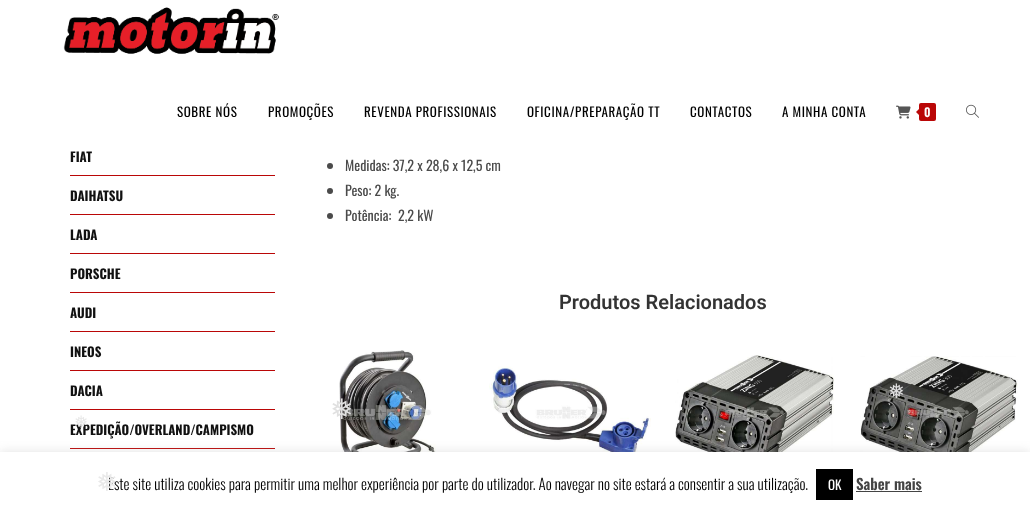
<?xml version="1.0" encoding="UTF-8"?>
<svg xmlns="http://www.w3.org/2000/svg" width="1030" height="512">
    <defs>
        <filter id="blur1" x="-50%" y="-200%" width="200%" height="500%"><feGaussianBlur stdDeviation="5"/></filter>
    </defs>
    <rect width="100%" height="100%" fill="#FFFFFF"/>
    <image x="63" y="7" width="216" height="47" href="img_01.png"/>
    <text x="177" y="117" font-family="Oswald" font-size="13" letter-spacing="0.6" fill="#000000">SOBRE NÓS</text>
    <text x="268" y="117" font-family="Oswald" font-size="13" letter-spacing="0.6" fill="#000000">PROMOÇÕES</text>
    <text x="364" y="117" font-family="Oswald" font-size="13" letter-spacing="0.6" fill="#000000">REVENDA PROFISSIONAIS</text>
    <text x="527" y="117" font-family="Oswald" font-size="13" letter-spacing="0.6" fill="#000000">OFICINA/PREPARAÇÃO TT</text>
    <text x="690" y="117" font-family="Oswald" font-size="13" letter-spacing="0.6" fill="#000000">CONTACTOS</text>
    <text x="782" y="117" font-family="Oswald" font-size="13" letter-spacing="0.6" fill="#000000">A MINHA CONTA</text>
    <image x="896" y="105" width="15" height="14" href="img_02.png"/>
    <rect x="919" y="103" width="17" height="18" rx="2" fill="#BA0707"/>
    <path d="M 921 107 V 117 L 916 112 Z" fill="#BA0707"/>
    <text x="924" y="117" font-family="Oswald" font-size="12" font-weight="600" fill="#FFFFFF">0</text>
    <image x="966" y="104" width="13" height="14" href="img_03.png"/>
    <rect x="70" y="175" width="205" height="1" fill="#BA0707"/>
    <text x="70" y="162" font-family="Oswald" font-size="13" font-weight="700" fill="#111111">FIAT</text>
    <rect x="70" y="214" width="205" height="1" fill="#BA0707"/>
    <text x="70" y="201" font-family="Oswald" font-size="13" font-weight="700" fill="#111111">DAIHATSU</text>
    <rect x="70" y="253" width="205" height="1" fill="#BA0707"/>
    <text x="70" y="240" font-family="Oswald" font-size="13" font-weight="700" fill="#111111">LADA</text>
    <rect x="70" y="292" width="205" height="1" fill="#BA0707"/>
    <text x="70" y="279" font-family="Oswald" font-size="13" font-weight="700" fill="#111111">PORSCHE</text>
    <rect x="70" y="331" width="205" height="1" fill="#BA0707"/>
    <text x="70" y="318" font-family="Oswald" font-size="13" font-weight="700" fill="#111111">AUDI</text>
    <rect x="70" y="370" width="205" height="1" fill="#BA0707"/>
    <text x="70" y="357" font-family="Oswald" font-size="13" font-weight="700" fill="#111111">INEOS</text>
    <rect x="70" y="409" width="205" height="1" fill="#BA0707"/>
    <text x="70" y="396" font-family="Oswald" font-size="13" font-weight="700" fill="#111111">DACIA</text>
    <rect x="70" y="448" width="205" height="1" fill="#BA0707"/>
    <text x="70" y="435" font-family="Oswald" font-size="13" font-weight="700" fill="#111111">EXPEDIÇÃO/OVERLAND/CAMPISMO</text>
    <circle cx="330" cy="166" r="3" fill="#4A4A4A"/>
    <text x="345" y="171" font-family="Oswald" font-size="14" fill="#4A4A4A">Medidas: 37,2 x 28,6 x 12,5 cm</text>
    <circle cx="330" cy="191" r="3" fill="#4A4A4A"/>
    <text x="345" y="196" font-family="Oswald" font-size="14" fill="#4A4A4A">Peso: 2 kg.</text>
    <circle cx="330" cy="216" r="3" fill="#4A4A4A"/>
    <text x="345" y="221" font-family="Oswald" font-size="14" fill="#4A4A4A">Potência:</text>
    <text x="398" y="221" font-family="Oswald" font-size="14" fill="#4A4A4A">2,2 kW</text>
    <text x="559" y="309" font-family="Roboto" font-size="20" font-weight="600" fill="#333333">Produtos Relacionados</text>
    <image x="339" y="350" width="121" height="102" href="img_04.png"/>
    <image x="489" y="366" width="162" height="86" href="img_05.png"/>
    <image x="675" y="355" width="159" height="97" href="img_06.png"/>
    <image x="860" y="356" width="158" height="96" href="img_07.png"/>
    <text x="888" y="398" font-family="DejaVu Sans" font-size="20" fill="#E0E0E0">❅</text>
    <text x="330" y="419" font-family="DejaVu Sans" font-size="28" fill="#E0E0E0">❅</text>
    <text x="74" y="428" font-family="DejaVu Sans" font-size="17" fill="#E9E9E9">❅</text>
    <rect x="0" y="451" width="1030" height="60" fill="#ACABAB" fill-opacity="0.3" filter="url(#blur1)"/>
    <rect x="0" y="452" width="1030" height="60" fill="#FFFFFF"/>
    <text x="108" y="490" font-family="Oswald" font-size="15" font-weight="300" fill="#000000">Este site utiliza cookies para permitir uma melhor experiência por parte do utilizador. Ao navegar no site estará a consentir a sua utilização.</text>
    <text x="96" y="491" font-family="DejaVu Sans" font-size="26" fill="#E9E9E9">❅</text>
    <rect x="816" y="469" width="37" height="31" fill="#000000"/>
    <text x="828" y="490" font-family="Oswald" font-size="13" fill="#FFFFFF">OK</text>
    <text x="856" y="490" font-family="Oswald" font-size="15" font-weight="600" fill="#444444">Saber mais</text>
    <rect x="856" y="491" width="66" height="1" fill="#444444"/>
</svg>
